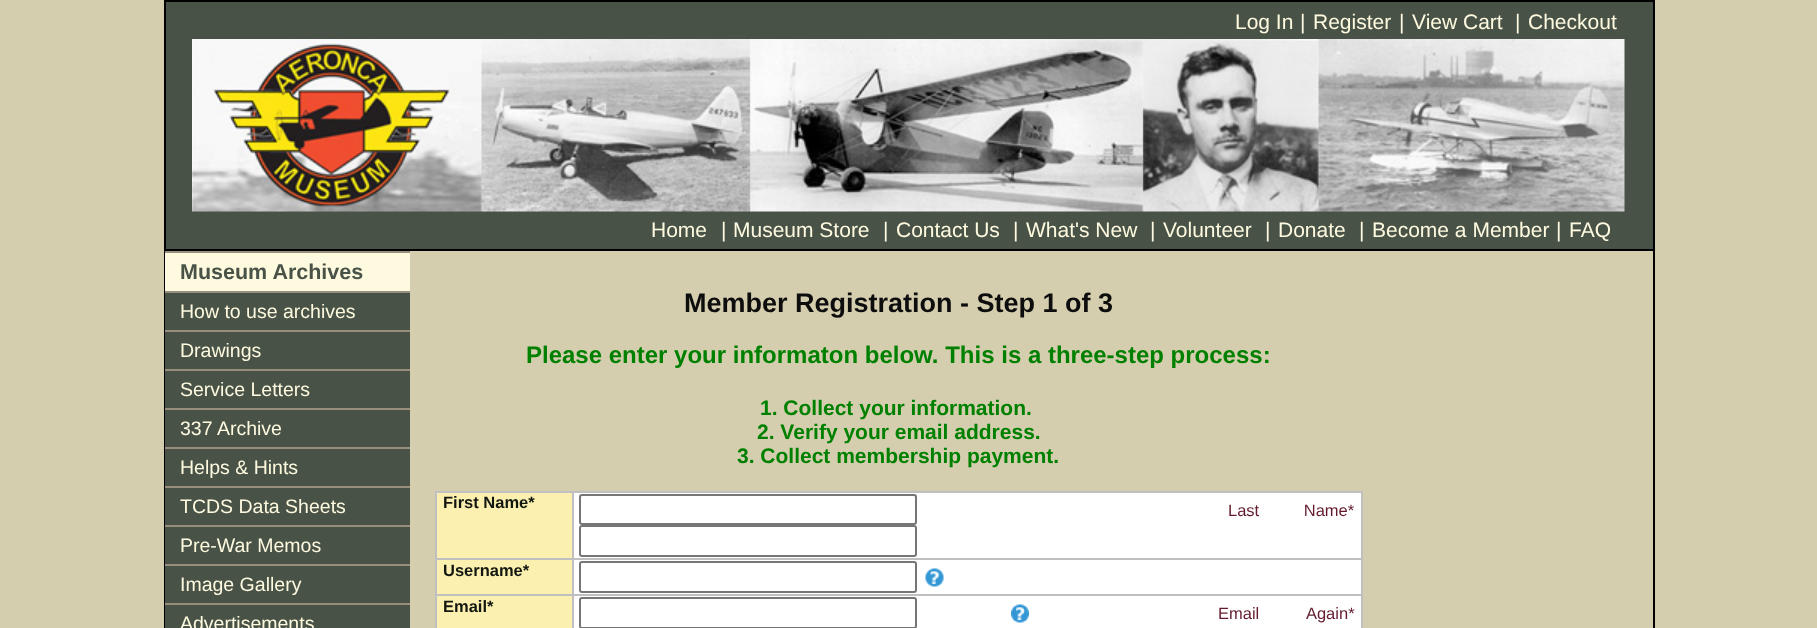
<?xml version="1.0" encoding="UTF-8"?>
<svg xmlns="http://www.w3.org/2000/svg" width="1817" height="628">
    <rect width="100%" height="100%" fill="#D4CEAE"/>
    <rect x="165" y="1" width="1489" height="249" fill="#495247" stroke="#000000" stroke-width="2"/>
    <text x="1235" y="29" font-family="Liberation Sans" font-size="21" fill="#FEFAE0">Log In</text>
    <text x="1300" y="29" font-family="Liberation Sans" font-size="21" fill="#FEFAE0">|</text>
    <text x="1313" y="29" font-family="Liberation Sans" font-size="21" fill="#FEFAE0">Register</text>
    <text x="1399" y="29" font-family="Liberation Sans" font-size="21" fill="#FEFAE0">|</text>
    <text x="1412" y="29" font-family="Liberation Sans" font-size="21" fill="#FEFAE0">View Cart</text>
    <text x="1515" y="29" font-family="Liberation Sans" font-size="21" fill="#FEFAE0">|</text>
    <text x="1528" y="29" font-family="Liberation Sans" font-size="21" fill="#FEFAE0">Checkout</text>
    <image x="192" y="39" width="1433" height="173" href="img_01.png"/>
    <text x="651" y="237" font-family="Liberation Sans" font-size="21" fill="#FEFAE0">Home</text>
    <text x="721" y="237" font-family="Liberation Sans" font-size="21" fill="#FEFAE0">|</text>
    <text x="733" y="237" font-family="Liberation Sans" font-size="21" fill="#FEFAE0">Museum Store</text>
    <text x="883" y="237" font-family="Liberation Sans" font-size="21" fill="#FEFAE0">|</text>
    <text x="896" y="237" font-family="Liberation Sans" font-size="21" fill="#FEFAE0">Contact Us</text>
    <text x="1013" y="237" font-family="Liberation Sans" font-size="21" fill="#FEFAE0">|</text>
    <text x="1026" y="237" font-family="Liberation Sans" font-size="21" fill="#FEFAE0">What's New</text>
    <text x="1150" y="237" font-family="Liberation Sans" font-size="21" fill="#FEFAE0">|</text>
    <text x="1163" y="237" font-family="Liberation Sans" font-size="21" fill="#FEFAE0">Volunteer</text>
    <text x="1265" y="237" font-family="Liberation Sans" font-size="21" fill="#FEFAE0">|</text>
    <text x="1278" y="237" font-family="Liberation Sans" font-size="21" fill="#FEFAE0">Donate</text>
    <text x="1359" y="237" font-family="Liberation Sans" font-size="21" fill="#FEFAE0">|</text>
    <text x="1372" y="237" font-family="Liberation Sans" font-size="21" fill="#FEFAE0">Become a Member</text>
    <text x="1556" y="237" font-family="Liberation Sans" font-size="21" fill="#FEFAE0">|</text>
    <text x="1569" y="237" font-family="Liberation Sans" font-size="21" fill="#FEFAE0">FAQ</text>
    <rect x="1653" y="251" width="2" height="377" fill="#000000"/>
    <rect x="164" y="251" width="1" height="377" fill="#000000"/>
    <rect x="165" y="253" width="245" height="38" fill="#FEFAE0"/>
    <rect x="165" y="251" width="245" height="2" fill="#978E7C"/>
    <text x="180" y="279" font-family="Liberation Sans" font-size="21.5" font-weight="700" fill="#495247">Museum Archives</text>
    <rect x="165" y="293" width="245" height="37" fill="#495247"/>
    <rect x="165" y="291" width="245" height="2" fill="#978E7C"/>
    <text x="180" y="318" font-family="Liberation Sans" font-size="19.5" fill="#FEFAE0">How to use archives</text>
    <rect x="165" y="332" width="245" height="37" fill="#495247"/>
    <rect x="165" y="330" width="245" height="2" fill="#978E7C"/>
    <text x="180" y="357" font-family="Liberation Sans" font-size="19.5" fill="#FEFAE0">Drawings</text>
    <rect x="165" y="371" width="245" height="37" fill="#495247"/>
    <rect x="165" y="369" width="245" height="2" fill="#978E7C"/>
    <text x="180" y="396" font-family="Liberation Sans" font-size="19.5" fill="#FEFAE0">Service Letters</text>
    <rect x="165" y="410" width="245" height="37" fill="#495247"/>
    <rect x="165" y="408" width="245" height="2" fill="#978E7C"/>
    <text x="180" y="435" font-family="Liberation Sans" font-size="19.5" fill="#FEFAE0">337 Archive</text>
    <rect x="165" y="449" width="245" height="37" fill="#495247"/>
    <rect x="165" y="447" width="245" height="2" fill="#978E7C"/>
    <text x="180" y="474" font-family="Liberation Sans" font-size="19.5" fill="#FEFAE0">Helps &amp; Hints</text>
    <rect x="165" y="488" width="245" height="37" fill="#495247"/>
    <rect x="165" y="486" width="245" height="2" fill="#978E7C"/>
    <text x="180" y="513" font-family="Liberation Sans" font-size="19.5" fill="#FEFAE0">TCDS Data Sheets</text>
    <rect x="165" y="527" width="245" height="37" fill="#495247"/>
    <rect x="165" y="525" width="245" height="2" fill="#978E7C"/>
    <text x="180" y="552" font-family="Liberation Sans" font-size="19.5" fill="#FEFAE0">Pre-War Memos</text>
    <rect x="165" y="566" width="245" height="37" fill="#495247"/>
    <rect x="165" y="564" width="245" height="2" fill="#978E7C"/>
    <text x="180" y="591" font-family="Liberation Sans" font-size="19.5" fill="#FEFAE0">Image Gallery</text>
    <rect x="165" y="605" width="245" height="23" fill="#495247"/>
    <rect x="165" y="603" width="245" height="2" fill="#978E7C"/>
    <text x="180" y="630" font-family="Liberation Sans" font-size="19.5" fill="#FEFAE0">Advertisements</text>
    <text x="684" y="312" font-family="Liberation Sans" font-size="27" font-weight="700" fill="#0D0D0D">Member Registration - Step 1 of 3</text>
    <text x="526" y="363" font-family="Liberation Sans" font-size="24" font-weight="700" fill="#008000">Please enter your informaton below. This is a three-step process:</text>
    <text x="760" y="415" font-family="Liberation Sans" font-size="21" font-weight="700" fill="#008000">1. Collect your information.</text>
    <text x="757" y="439" font-family="Liberation Sans" font-size="21" font-weight="700" fill="#008000">2. Verify your email address.</text>
    <text x="737" y="463" font-family="Liberation Sans" font-size="21" font-weight="700" fill="#008000">3. Collect membership payment.</text>
    <rect x="435" y="491" width="927" height="2" fill="#C0C0C0"/>
    <rect x="1361" y="491" width="2" height="137" fill="#C0C0C0"/>
    <rect x="435" y="491" width="2" height="137" fill="#C0C0C0"/>
    <rect x="437" y="493" width="135" height="65" fill="#FBF0B0"/>
    <text x="443" y="508" font-family="Liberation Sans" font-size="16.5" font-weight="700" fill="#121711">First Name*</text>
    <rect x="574" y="493" width="787" height="65" fill="#FFFFFF"/>
    <rect x="572" y="558" width="790" height="2" fill="#C0C0C0"/>
    <rect x="572" y="594" width="790" height="2" fill="#C0C0C0"/>
    <rect x="572" y="594" width="2" height="34" fill="#C0C0C0"/>
    <rect x="435" y="594" width="138" height="2" fill="#C0C0C0"/>
    <rect x="572" y="558" width="2" height="38" fill="#C0C0C0"/>
    <rect x="435" y="558" width="138" height="2" fill="#C0C0C0"/>
    <rect x="572" y="491" width="2" height="69" fill="#C0C0C0"/>
    <rect x="580" y="495" width="336" height="29" rx="2" fill="none" stroke="#767676" stroke-width="2"/>
    <text x="1228" y="516" word-spacing="40" font-family="Liberation Sans" font-size="16.5" fill="#631B2D">Last Name*</text>
    <rect x="580" y="526" width="336" height="30" rx="2" fill="none" stroke="#767676" stroke-width="2"/>
    <rect x="437" y="560" width="135" height="34" fill="#FBF0B0"/>
    <text x="443" y="576" font-family="Liberation Sans" font-size="16.5" font-weight="700" fill="#121711">Username*</text>
    <rect x="574" y="560" width="787" height="34" fill="#FFFFFF"/>
    <rect x="580" y="562" width="336" height="30" rx="2" fill="none" stroke="#767676" stroke-width="2"/>
    <image x="925" y="568" width="19" height="19" href="img_02.png"/>
    <rect x="437" y="596" width="135" height="32" fill="#FBF0B0"/>
    <text x="443" y="612" font-family="Liberation Sans" font-size="16.5" font-weight="700" fill="#121711">Email*</text>
    <rect x="574" y="596" width="787" height="32" fill="#FFFFFF"/>
    <rect x="580" y="598" width="336" height="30" rx="2" fill="none" stroke="#767676" stroke-width="2"/>
    <image x="1011" y="604" width="18" height="19" href="img_03.png"/>
    <text x="1218" y="619" word-spacing="43" font-family="Liberation Sans" font-size="16.5" fill="#631B2D">Email Again*</text>
</svg>
